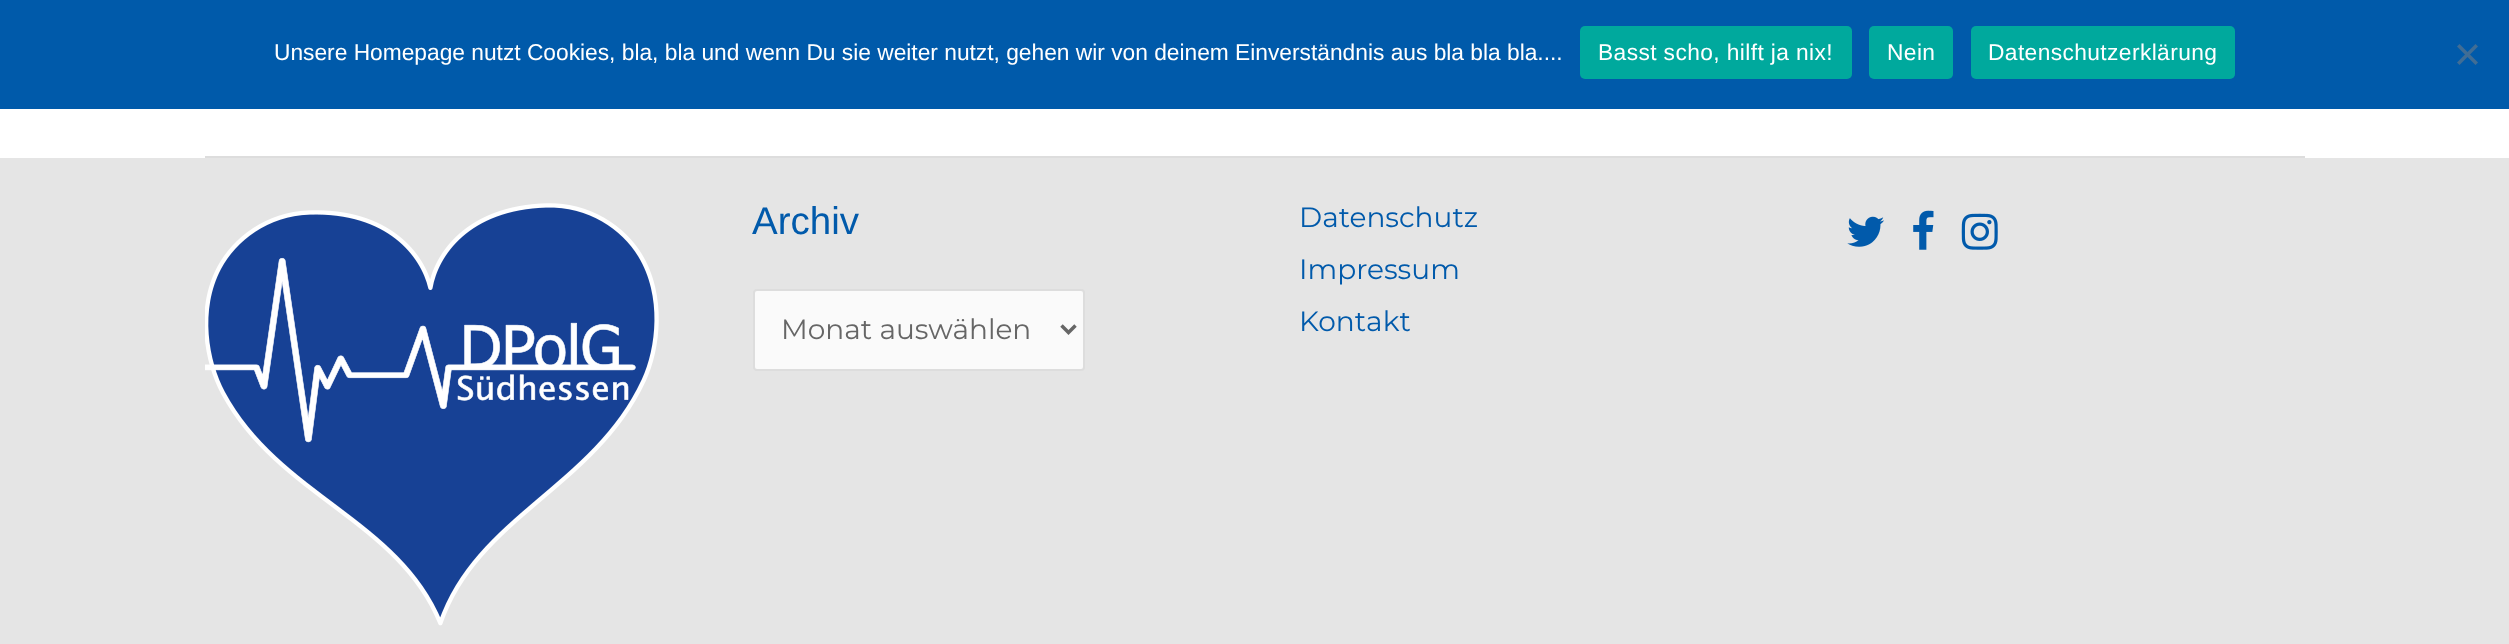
<?xml version="1.0" encoding="UTF-8"?>
<svg xmlns="http://www.w3.org/2000/svg" width="2509" height="644">
    <rect width="100%" height="100%" fill="#FFFFFF"/>
    <rect x="0" y="0" width="2509" height="109" fill="#005AAA"/>
    <text x="274" y="60" font-family="Liberation Sans" font-size="22.75" fill="#FFFFFF">Unsere Homepage nutzt Cookies, bla, bla und wenn Du sie weiter nutzt, gehen wir von deinem Einverständnis aus bla bla bla....</text>
    <rect x="1580" y="26" width="272" height="53" rx="5" fill="#00A99D"/>
    <text x="1598" y="60" font-family="Liberation Sans" font-size="22.75" letter-spacing="0.4" fill="#FFFFFF">Basst scho, hilft ja nix!</text>
    <rect x="1869" y="26" width="84" height="53" rx="5" fill="#00A99D"/>
    <text x="1887" y="60" font-family="Liberation Sans" font-size="22.75" letter-spacing="0.4" fill="#FFFFFF">Nein</text>
    <rect x="1971" y="26" width="264" height="53" rx="5" fill="#00A99D"/>
    <text x="1988" y="60" font-family="Liberation Sans" font-size="22.75" letter-spacing="0.4" fill="#FFFFFF">Datenschutzerklärung</text>
    <path d="M 2475.5 44 L 2478 46.5 L 2459.5 65 L 2457 62.5 Z" fill="#406D95"/>
    <path d="M 2457 46.5 L 2459.5 44 L 2478 62.5 L 2475.5 65 Z" fill="#406D95"/>
    <rect x="205" y="156" width="2100" height="2" fill="#DDDDDD"/>
    <rect x="0" y="158" width="2509" height="486" fill="#E5E5E5"/>
    <image x="205" y="203" width="454" height="423" href="img_01.png"/>
    <text x="752" y="234" font-family="Liberation Sans" font-size="38.5" fill="#015AAB">Archiv</text>
    <rect x="754" y="290" width="330" height="80" rx="3" fill="#FAFAFA" stroke="#DDDDDD" stroke-width="2"/>
    <path d="M 1061.5 325.5 L 1068.5 332.5 L 1075.5 325.5" fill="none" stroke="#666666" stroke-width="3.5"/>
    <text x="781" y="339" font-family="Montserrat" font-size="28" fill="#666666">Monat auswählen</text>
    <text font-family="Montserrat" font-size="28" fill="#015AAB">
        <tspan x="1299" y="227">Datenschutz</tspan>
        <tspan x="1299" y="279">Impressum</tspan>
        <tspan x="1299" y="331">Kontakt</tspan>
    </text>
    <image x="1847" y="216" width="37" height="31" href="img_02.png"/>
    <image x="1913" y="210" width="21" height="40" href="img_03.png"/>
    <image x="1961" y="213" width="37" height="37" href="img_04.png"/>
</svg>
